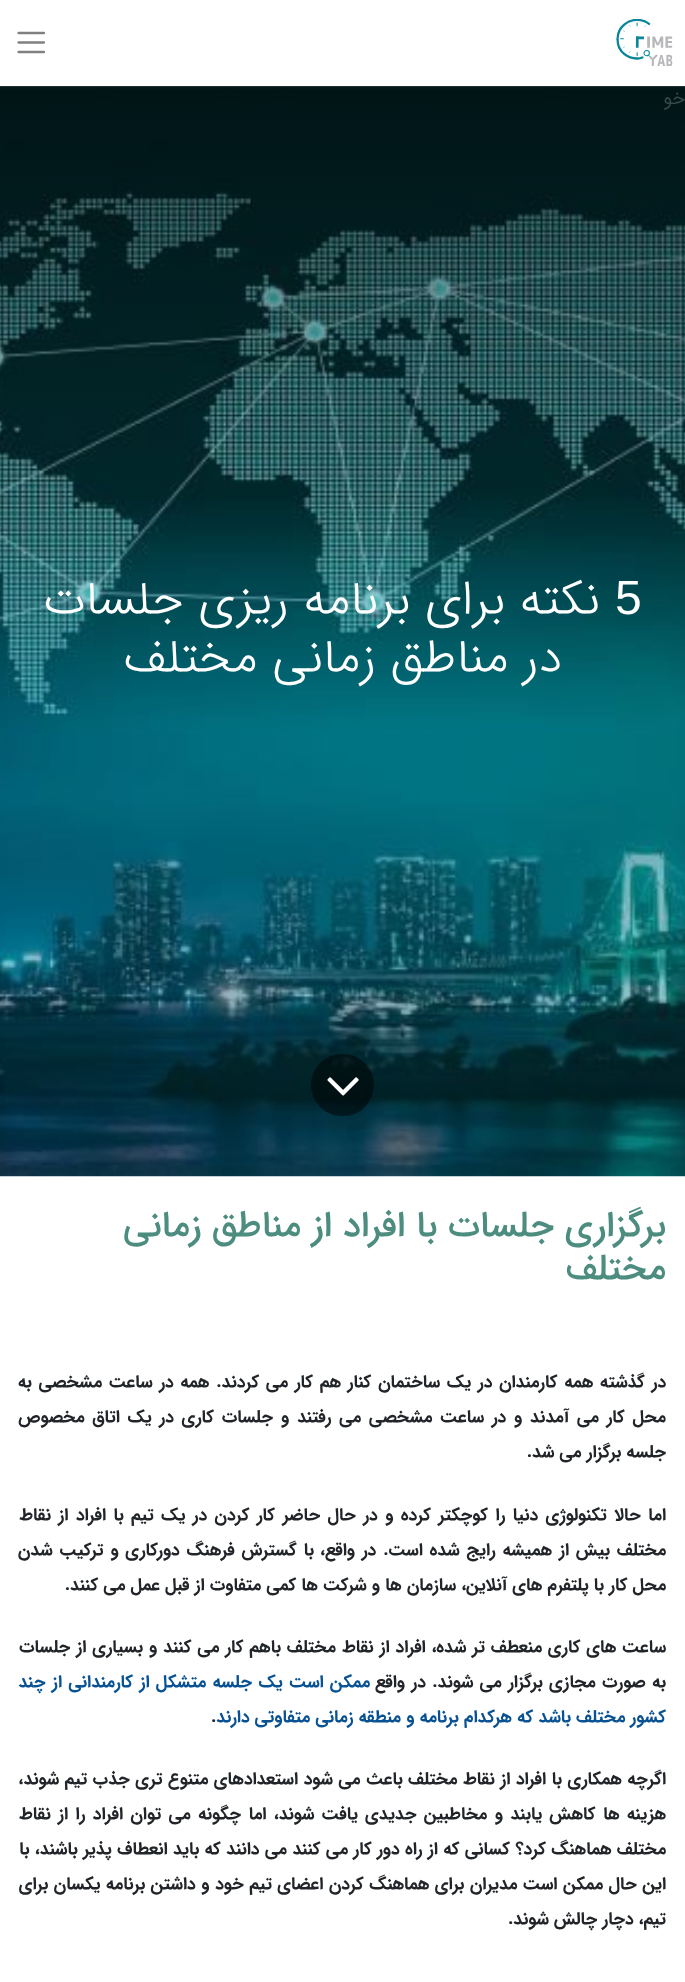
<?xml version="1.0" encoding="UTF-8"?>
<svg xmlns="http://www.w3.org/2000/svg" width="685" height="1982">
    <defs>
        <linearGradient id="g1" gradientUnits="userSpaceOnUse" x1="343" y1="86" x2="343" y2="631"><stop offset="0" stop-color="#000000" stop-opacity="0.5"/><stop offset="0.19" stop-color="#000000" stop-opacity="0.37"/><stop offset="0.34" stop-color="#000000" stop-opacity="0.27"/><stop offset="0.47" stop-color="#000000" stop-opacity="0.19"/><stop offset="0.56" stop-color="#000000" stop-opacity="0.14"/><stop offset="0.65" stop-color="#000000" stop-opacity="0.1"/><stop offset="0.73" stop-color="#000000" stop-opacity="0.06"/><stop offset="0.8" stop-color="#000000" stop-opacity="0.04"/><stop offset="0.86" stop-color="#000000" stop-opacity="0.02"/><stop offset="0.91" stop-color="#000000" stop-opacity="0.01"/><stop offset="0.95" stop-color="#000000" stop-opacity="0"/><stop offset="0.98" stop-color="#000000" stop-opacity="0"/><stop offset="1" stop-color="#000000" stop-opacity="0"/></linearGradient>
    </defs>
    <rect width="100%" height="100%" fill="#FFFFFF"/>
    <image x="616" y="19" width="57" height="47" href="img_01.png"/>
    <path d="M 18.5 33 H 44 M 18.5 42.5 H 44 M 18.5 52 H 44" fill="none" stroke="#808080" stroke-width="2.3" stroke-linecap="round"/>
    <image x="0" y="86" width="685" height="1091" href="img_02.png"/>
    <rect x="0" y="86" width="685" height="466" fill="url(#g1)"/>
    <text x="685" y="104" font-family="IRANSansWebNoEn" font-size="19" direction="rtl" fill="#334849">خو</text>
    <text x="615" y="614" font-family="Liberation Sans" font-size="48" fill="#FFFFFF">5</text>
    <text x="600" y="614" font-family="IRANSansWebNoEn" font-size="48" font-weight="300" direction="rtl" fill="#FFFFFF">نکته برای برنامه ریزی جلسات</text>
    <text x="562" y="672" font-family="IRANSansWebNoEn" font-size="48" font-weight="300" direction="rtl" fill="#FFFFFF">در مناطق زمانی مختلف</text>
    <rect x="311" y="1054" width="63" height="62" rx="31" fill="#000000" fill-opacity="0.5"/>
    <image x="327" y="1077" width="32" height="19" href="img_03.png"/>
    <text font-family="IRANSansWebNoEn" font-size="36.2" font-weight="500" direction="rtl" fill="#4D8D80">
        <tspan x="666" y="1236">برگزاری جلسات با افراد از مناطق زمانی</tspan>
        <tspan x="666" y="1279">مختلف</tspan>
    </text>
    <text x="666" y="1387" word-spacing="1.6" font-family="IRANSansWebNoEn" font-size="17.5" font-weight="700" direction="rtl" fill="#212529">در گذشته همه کارمندان در یک ساختمان کنار هم کار می کردند. همه در ساعت مشخصی به</text>
    <text x="666" y="1422" word-spacing="2.6" font-family="IRANSansWebNoEn" font-size="17.5" font-weight="700" direction="rtl" fill="#212529">محل کار می آمدند و در ساعت مشخصی می رفتند و جلسات کاری در یک اتاق مخصوص</text>
    <text x="666" y="1457" font-family="IRANSansWebNoEn" font-size="17.5" font-weight="700" direction="rtl" fill="#212529">جلسه برگزار می شد.</text>
    <text x="666" y="1520" word-spacing="2.25" font-family="IRANSansWebNoEn" font-size="17.5" font-weight="700" direction="rtl" fill="#212529">اما حالا تکنولوژی دنیا را کوچکتر کرده و در حال حاضر کار کردن در یک تیم با افراد از نقاط</text>
    <text x="666" y="1555" word-spacing="1.75" font-family="IRANSansWebNoEn" font-size="17.5" font-weight="700" direction="rtl" fill="#212529">مختلف بیش از همیشه رایج شده است. در واقع،</text>
    <text x="314" y="1555" word-spacing="1.75" font-family="IRANSansWebNoEn" font-size="17.5" font-weight="700" direction="rtl" fill="#212529">با گسترش فرهنگ دورکاری و ترکیب شدن</text>
    <text x="666" y="1590" font-family="IRANSansWebNoEn" font-size="17.5" font-weight="700" direction="rtl" fill="#212529">محل کار با پلتفرم های آنلاین، سازمان ها و شرکت ها کمی متفاوت از قبل عمل می کنند.</text>
    <text x="666" y="1652" word-spacing="0.75" font-family="IRANSansWebNoEn" font-size="17.5" font-weight="700" direction="rtl" fill="#212529">ساعت های کاری منعطف تر شده، افراد از نقاط مختلف باهم کار می کنند و بسیاری از جلسات</text>
    <text x="666" y="1687" word-spacing="1.25" font-family="IRANSansWebNoEn" font-size="17.5" font-weight="700" direction="rtl" fill="#212529">به صورت مجازی برگزار می شوند. در واقع</text>
    <text x="370" y="1687" word-spacing="1.25" font-family="IRANSansWebNoEn" font-size="17.5" font-weight="700" direction="rtl" fill="#085294">ممکن است یک جلسه متشکل از کارمندانی از چند</text>
    <text x="666" y="1722" font-family="IRANSansWebNoEn" font-size="17.5" font-weight="700" direction="rtl" fill="#085294">کشور مختلف باشد که هرکدام برنامه و منطقه زمانی متفاوتی دارند</text>
    <text x="211" y="1722" font-family="IRANSansWebNoEn" font-size="17.5" font-weight="700" fill="#212529">.</text>
    <text x="666" y="1784" word-spacing="0.4" font-family="IRANSansWebNoEn" font-size="17.5" font-weight="700" direction="rtl" fill="#212529">اگرچه همکاری با افراد از نقاط مختلف باعث می شود استعدادهای متنوع تری جذب تیم شوند،</text>
    <text x="666" y="1819" word-spacing="2.25" font-family="IRANSansWebNoEn" font-size="17.5" font-weight="700" direction="rtl" fill="#212529">هزینه ها کاهش یابند و مخاطبین جدیدی یافت شوند، اما چگونه می توان افراد را از نقاط</text>
    <text x="666" y="1854" word-spacing="0.25" font-family="IRANSansWebNoEn" font-size="17.5" font-weight="700" direction="rtl" fill="#212529">مختلف هماهنگ کرد؟ کسانی که از راه دور کار می کنند می دانند که باید انعطاف پذیر باشند، با</text>
    <text x="666" y="1889" word-spacing="0.4" font-family="IRANSansWebNoEn" font-size="17.5" font-weight="700" direction="rtl" fill="#212529">این حال ممکن است مدیران برای هماهنگ کردن اعضای تیم خود و داشتن برنامه یکسان برای</text>
    <text x="666" y="1924" font-family="IRANSansWebNoEn" font-size="17.5" font-weight="700" direction="rtl" fill="#212529">تیم، دچار چالش شوند.</text>
</svg>
